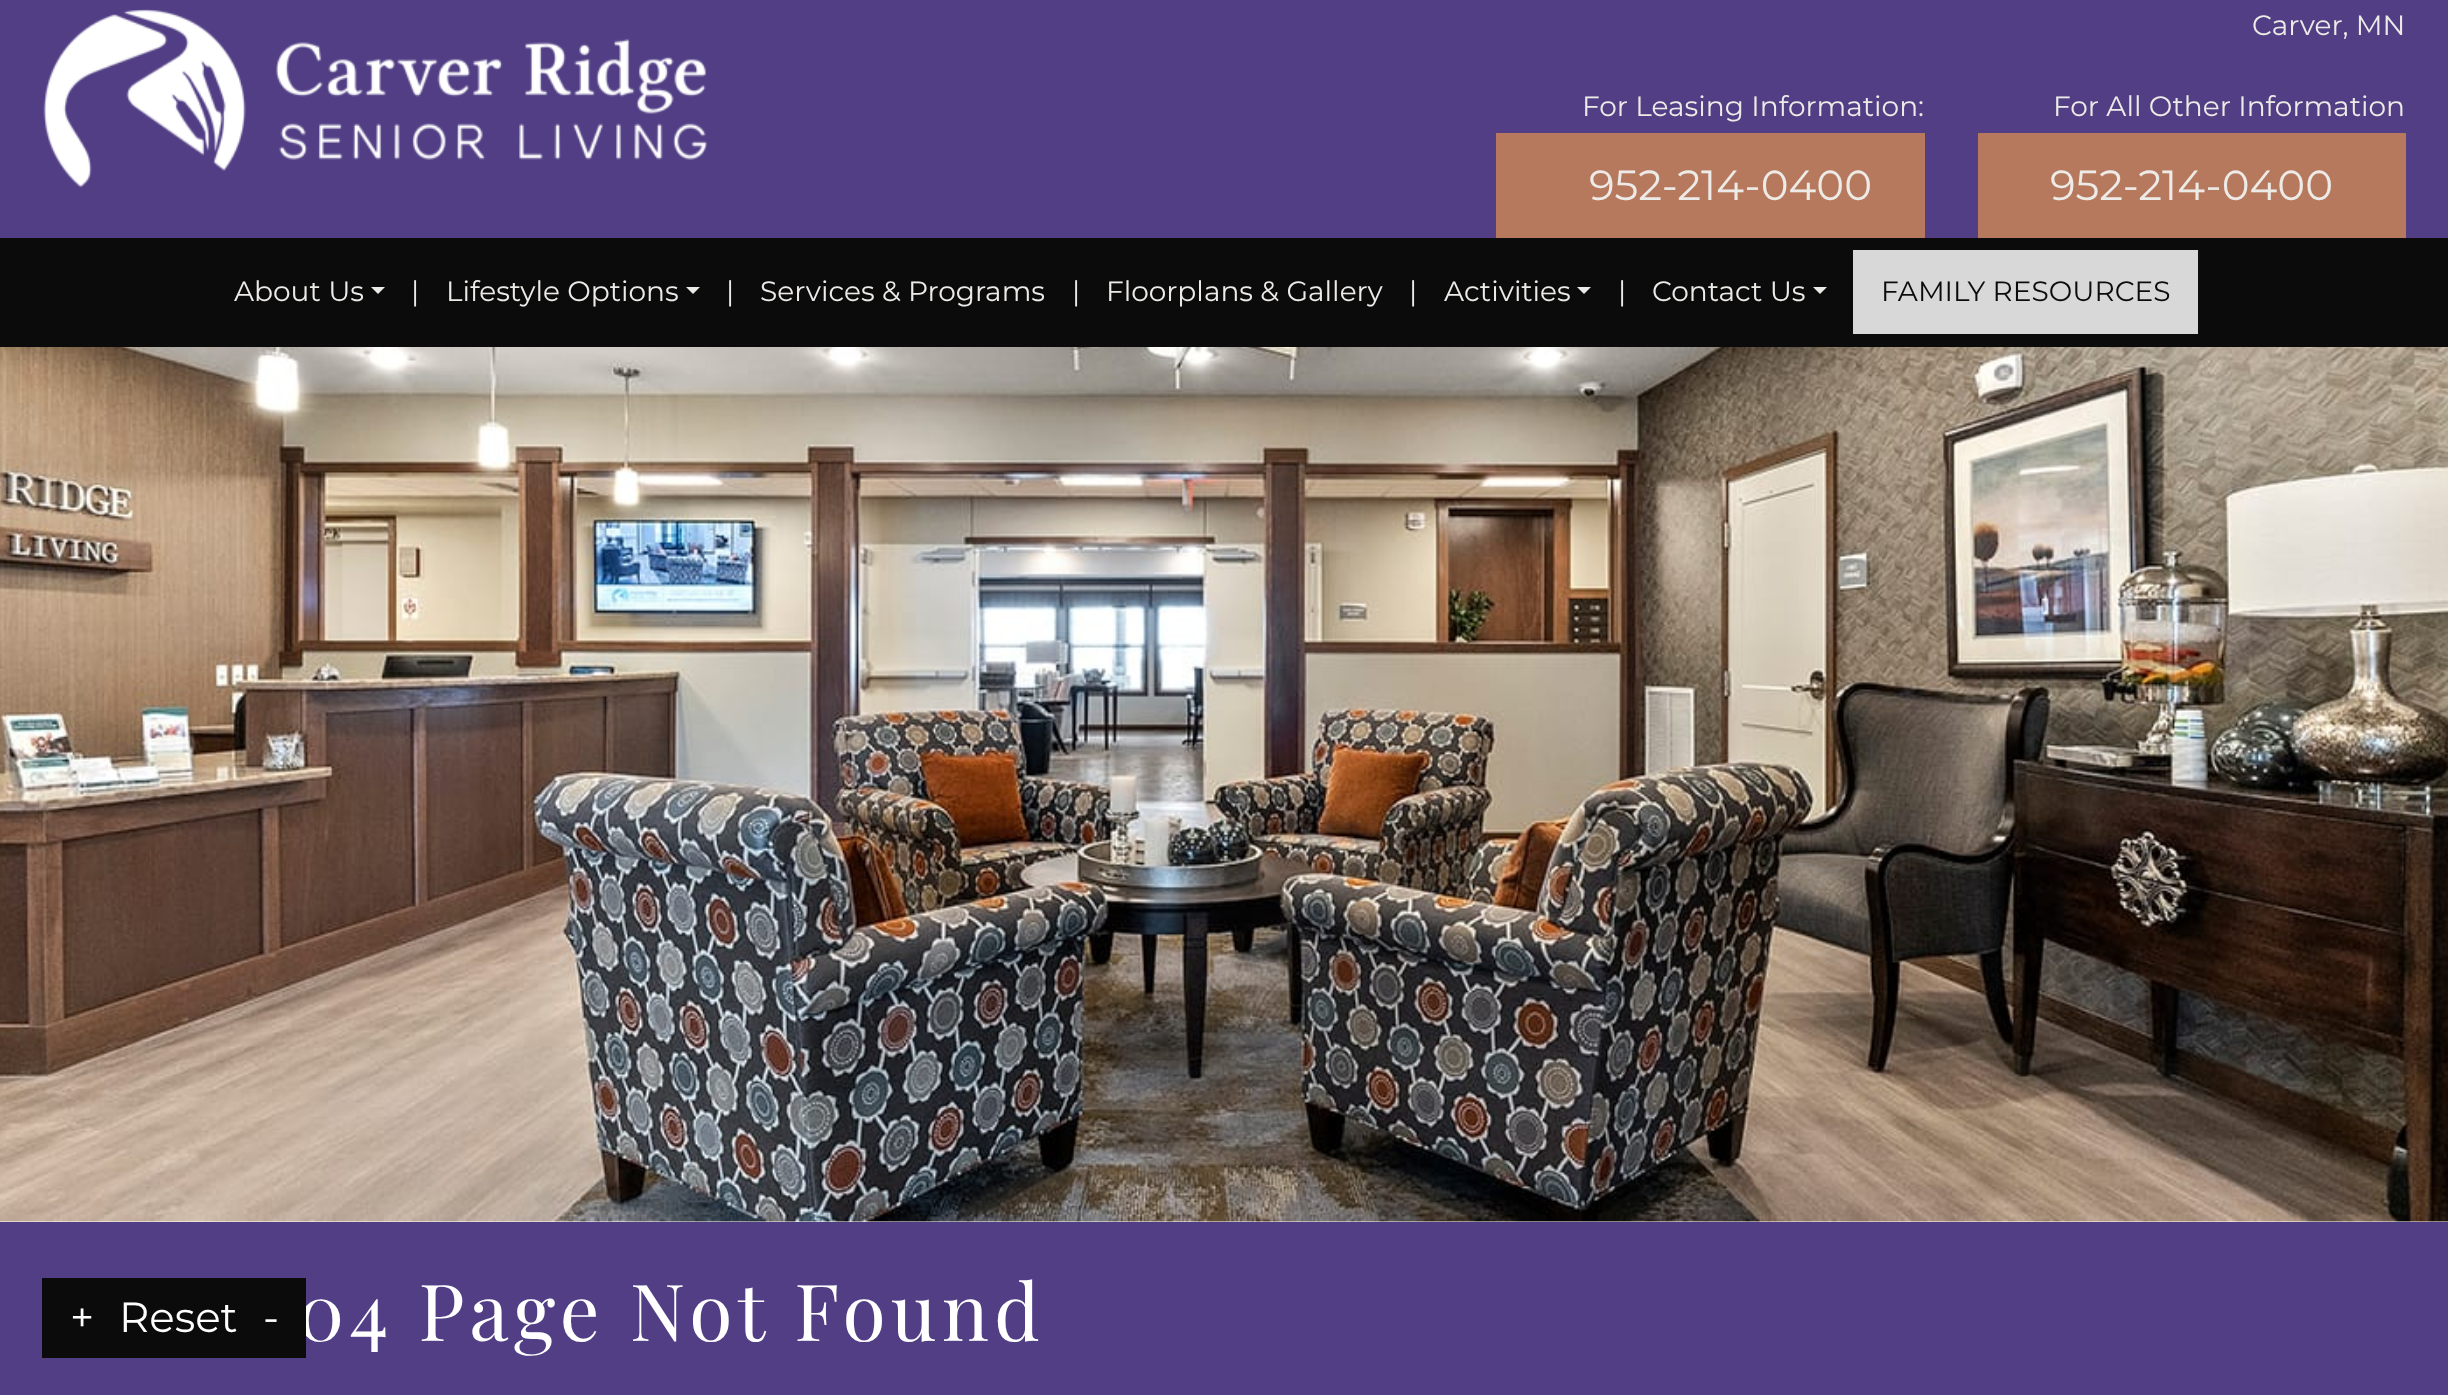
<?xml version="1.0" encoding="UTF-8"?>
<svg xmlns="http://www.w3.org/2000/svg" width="2448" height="1400">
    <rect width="100%" height="100%" fill="#FFFFFF"/>
    <rect x="0" y="0" width="2448" height="238" fill="#513E84"/>
    <image x="43" y="9" width="664" height="179" href="img_01.png"/>
    <text x="1582" y="116" font-family="Montserrat" font-size="28" fill="#EDEBE7">For Leasing Information:</text>
    <rect x="1496" y="133" width="429" height="105" fill="#B7795D"/>
    <text x="1589" y="200" font-family="Montserrat" font-size="42" fill="#EDEBE7">952-214-0400</text>
    <text x="2252" y="35" font-family="Montserrat" font-size="28" fill="#EDEBE7">Carver, MN</text>
    <text x="2053" y="116" font-family="Montserrat" font-size="28" fill="#EDEBE7">For All Other Information</text>
    <rect x="1978" y="133" width="428" height="105" fill="#B7795D"/>
    <text x="2050" y="200" font-family="Montserrat" font-size="42" fill="#EDEBE7">952-214-0400</text>
    <rect x="0" y="238" width="2448" height="109" fill="#0C0B0B"/>
    <text x="234" y="301" font-family="Montserrat" font-size="28" fill="#EDEBE7">About Us</text>
    <path d="M 371 287 H 385 L 378 294 Z" fill="#EDEBE7"/>
    <text x="411" y="301" font-family="Montserrat" font-size="28" fill="#EDEBE7">|</text>
    <text x="446" y="301" font-family="Montserrat" font-size="28" fill="#EDEBE7">Lifestyle Options</text>
    <path d="M 686 287 H 700 L 693 294 Z" fill="#EDEBE7"/>
    <text x="726" y="301" font-family="Montserrat" font-size="28" fill="#EDEBE7">|</text>
    <text x="760" y="301" font-family="Montserrat" font-size="28" fill="#EDEBE7">Services &amp; Programs</text>
    <text x="1072" y="301" font-family="Montserrat" font-size="28" fill="#EDEBE7">|</text>
    <text x="1106" y="301" font-family="Montserrat" font-size="28" fill="#EDEBE7">Floorplans &amp; Gallery</text>
    <text x="1409" y="301" font-family="Montserrat" font-size="28" fill="#EDEBE7">|</text>
    <text x="1444" y="301" font-family="Montserrat" font-size="28" fill="#EDEBE7">Activities</text>
    <path d="M 1577 287 H 1591 L 1584 294 Z" fill="#EDEBE7"/>
    <text x="1618" y="301" font-family="Montserrat" font-size="28" fill="#EDEBE7">|</text>
    <text x="1652" y="301" font-family="Montserrat" font-size="28" fill="#EDEBE7">Contact Us</text>
    <path d="M 1813 287 H 1827 L 1820 294 Z" fill="#EDEBE7"/>
    <rect x="1853" y="250" width="345" height="84" fill="#D8D8D8"/>
    <text x="1881" y="301" font-family="Montserrat" font-size="28" fill="#0C0B0B">FAMILY RESOURCES</text>
    <image x="0" y="347" width="2448" height="875" href="img_02.png"/>
    <rect x="0" y="1222" width="2448" height="173" fill="#513E84"/>
    <text x="297" y="1341" font-family="Playfair Display" font-size="78.75" letter-spacing="5.25" fill="#FFFFFF">04 Page Not Found</text>
    <rect x="42" y="1278" width="264" height="80" fill="#0C0B0B"/>
    <text x="70" y="1332" font-family="Montserrat" font-size="42" fill="#FFFFFF">+</text>
    <text x="119" y="1332" font-family="Montserrat" font-size="42" fill="#FFFFFF">Reset</text>
    <text x="263" y="1332" font-family="Montserrat" font-size="42" fill="#FFFFFF">-</text>
</svg>
